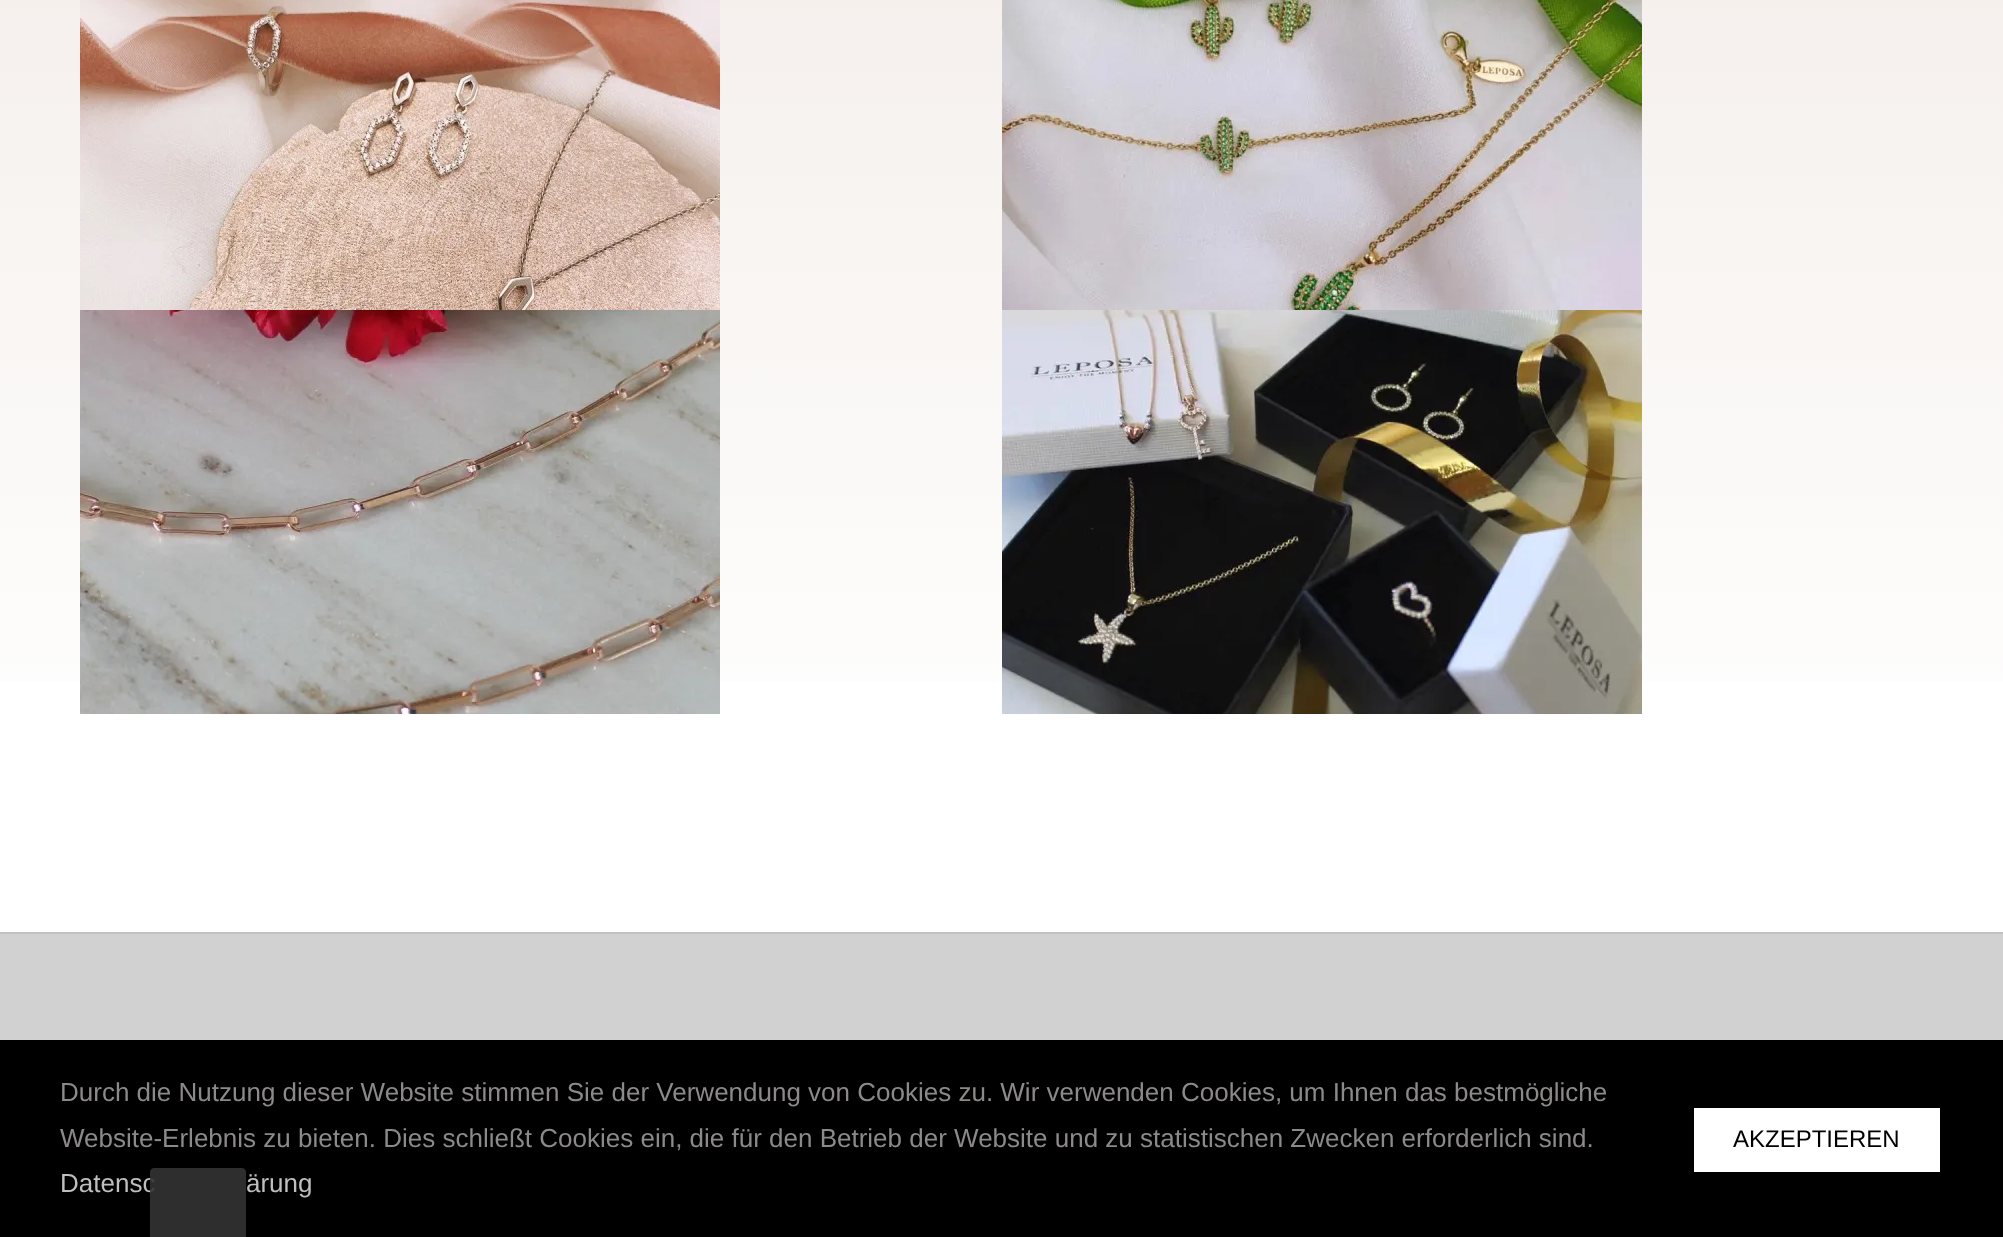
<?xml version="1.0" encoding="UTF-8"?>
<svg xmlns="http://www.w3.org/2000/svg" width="2003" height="1237">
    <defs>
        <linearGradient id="g1" gradientUnits="userSpaceOnUse" x1="1002" y1="-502" x2="1002" y2="788"><stop offset="0" stop-color="#EFE7E1"/><stop offset="1" stop-color="#FFFFFF"/></linearGradient>
    </defs>
    <rect width="100%" height="100%" fill="#FFFFFF"/>
    <rect x="0" y="0" width="2003" height="681" fill="url(#g1)"/>
    <image x="80" y="0" width="640" height="310" href="img_01.png"/>
    <image x="1002" y="0" width="640" height="310" href="img_02.png"/>
    <image x="80" y="310" width="640" height="404" href="img_03.png"/>
    <image x="1002" y="310" width="640" height="404" href="img_04.png"/>
    <rect x="0" y="934" width="2003" height="106" fill="#D1D1D1"/>
    <rect x="0" y="932" width="2003" height="2" fill="#C0C1C1"/>
    <rect x="0" y="1040" width="2003" height="197" fill="#000000"/>
    <text font-family="Liberation Sans" font-size="26" fill="#8C8989">
        <tspan x="60" y="1101">Durch die Nutzung dieser Website stimmen Sie der Verwendung von Cookies zu. Wir verwenden Cookies, um Ihnen das bestmögliche</tspan>
        <tspan x="60" y="1147">Website-Erlebnis zu bieten. Dies schließt Cookies ein, die für den Betrieb der Website und zu statistischen Zwecken erforderlich sind.</tspan>
    </text>
    <text x="60" y="1192" font-family="Liberation Sans" font-size="26" fill="#BFBFBF">Datensc</text>
    <text x="246" y="1192" font-family="Liberation Sans" font-size="26" fill="#BFBFBF">ärung</text>
    <rect x="1694" y="1108" width="246" height="64" fill="#FFFFFF"/>
    <text x="1733" y="1147" font-family="Liberation Sans" font-size="24" fill="#000000">AKZEPTIEREN</text>
    <path d="M 154 1168 H 242 C 244 1168 246 1170 246 1172 V 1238 H 150 V 1172 C 150 1170 152 1168 154 1168 Z" fill="#333333" fill-opacity="0.9"/>
</svg>
